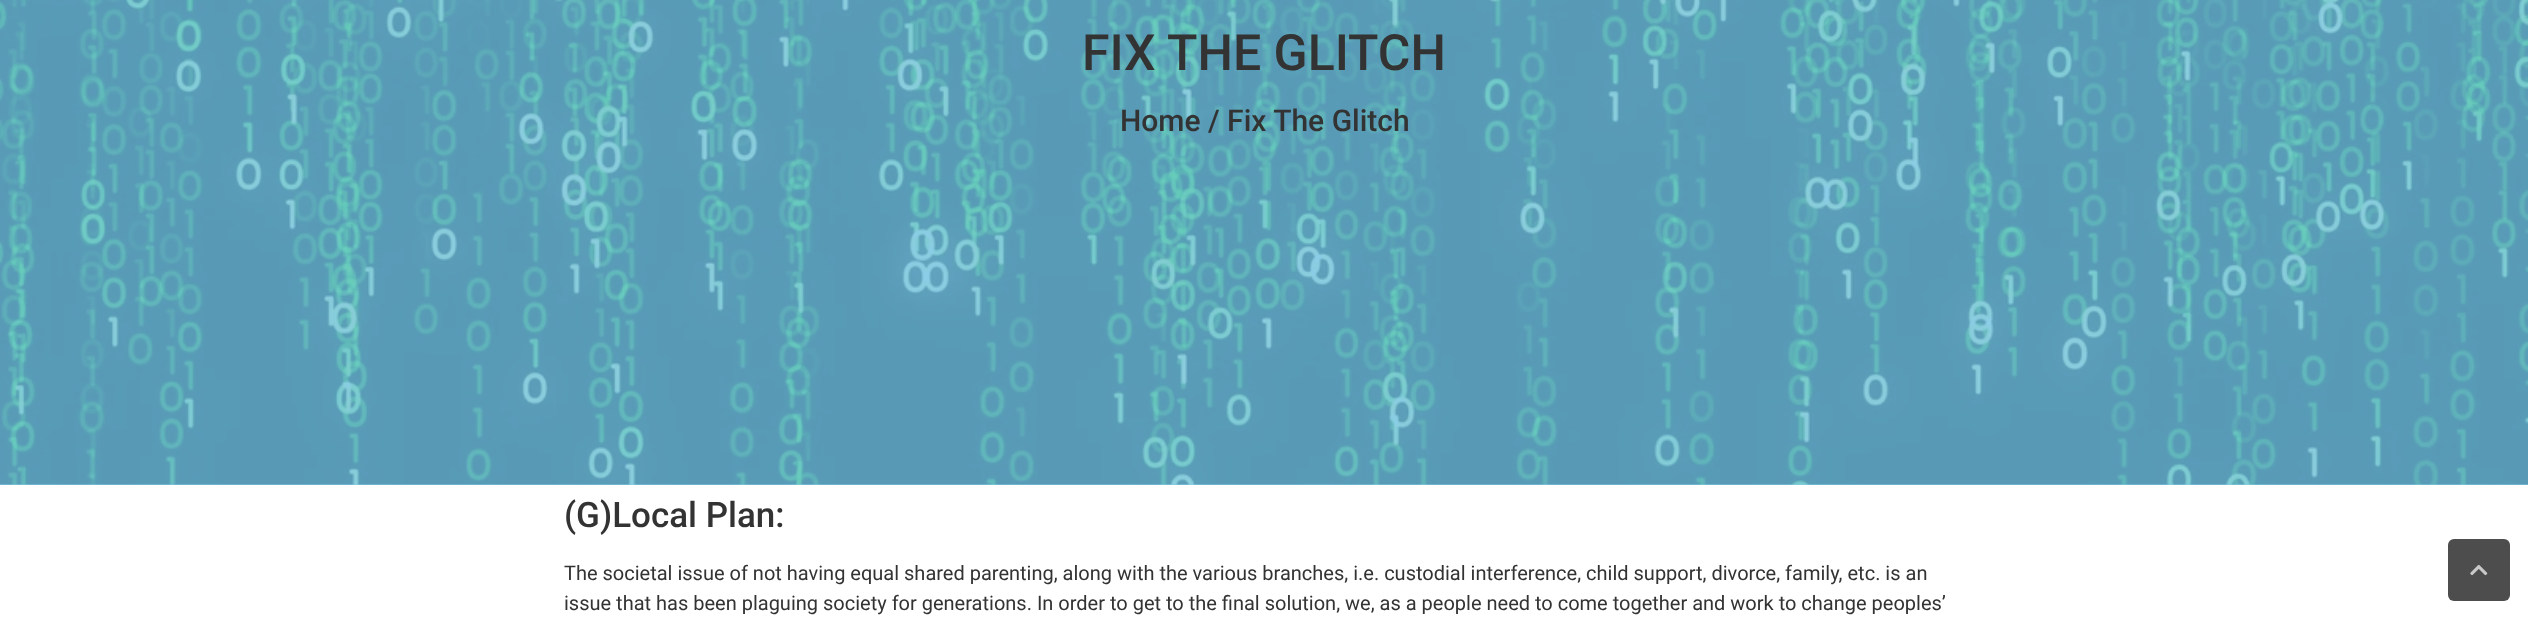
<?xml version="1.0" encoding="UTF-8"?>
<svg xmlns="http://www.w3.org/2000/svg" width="2528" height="619">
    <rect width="100%" height="100%" fill="#FFFFFF"/>
    <rect x="0" y="484" width="2528" height="1" fill="#8BCDE9"/>
    <image x="0" y="0" width="2528" height="485" href="img_01.png"/>
    <text x="1082" y="70" font-family="Roboto" font-size="50" font-weight="500" fill="#333333">FIX THE GLITCH</text>
    <text x="1120" y="131" font-family="Roboto" font-size="30" font-weight="500" fill="#333333">Home / Fix The Glitch</text>
    <text x="564" y="527" font-family="Roboto" font-size="35" font-weight="500" fill="#333333">(G)Local Plan:</text>
    <text font-family="Roboto" font-size="20" fill="#333333">
        <tspan x="564" y="580">The societal issue of not having equal shared parenting, along with the various branches, i.e. custodial interference, child support, divorce, family, etc. is an</tspan>
        <tspan x="564" y="610">issue that has been plaguing society for generations. In order to get to the final solution, we, as a people need to come together and work to change peoples’</tspan>
    </text>
    <rect x="2448" y="539" width="62" height="62" rx="6" fill="#4D4D4D"/>
    <image x="2470" y="564" width="18" height="12" href="img_02.png"/>
</svg>
